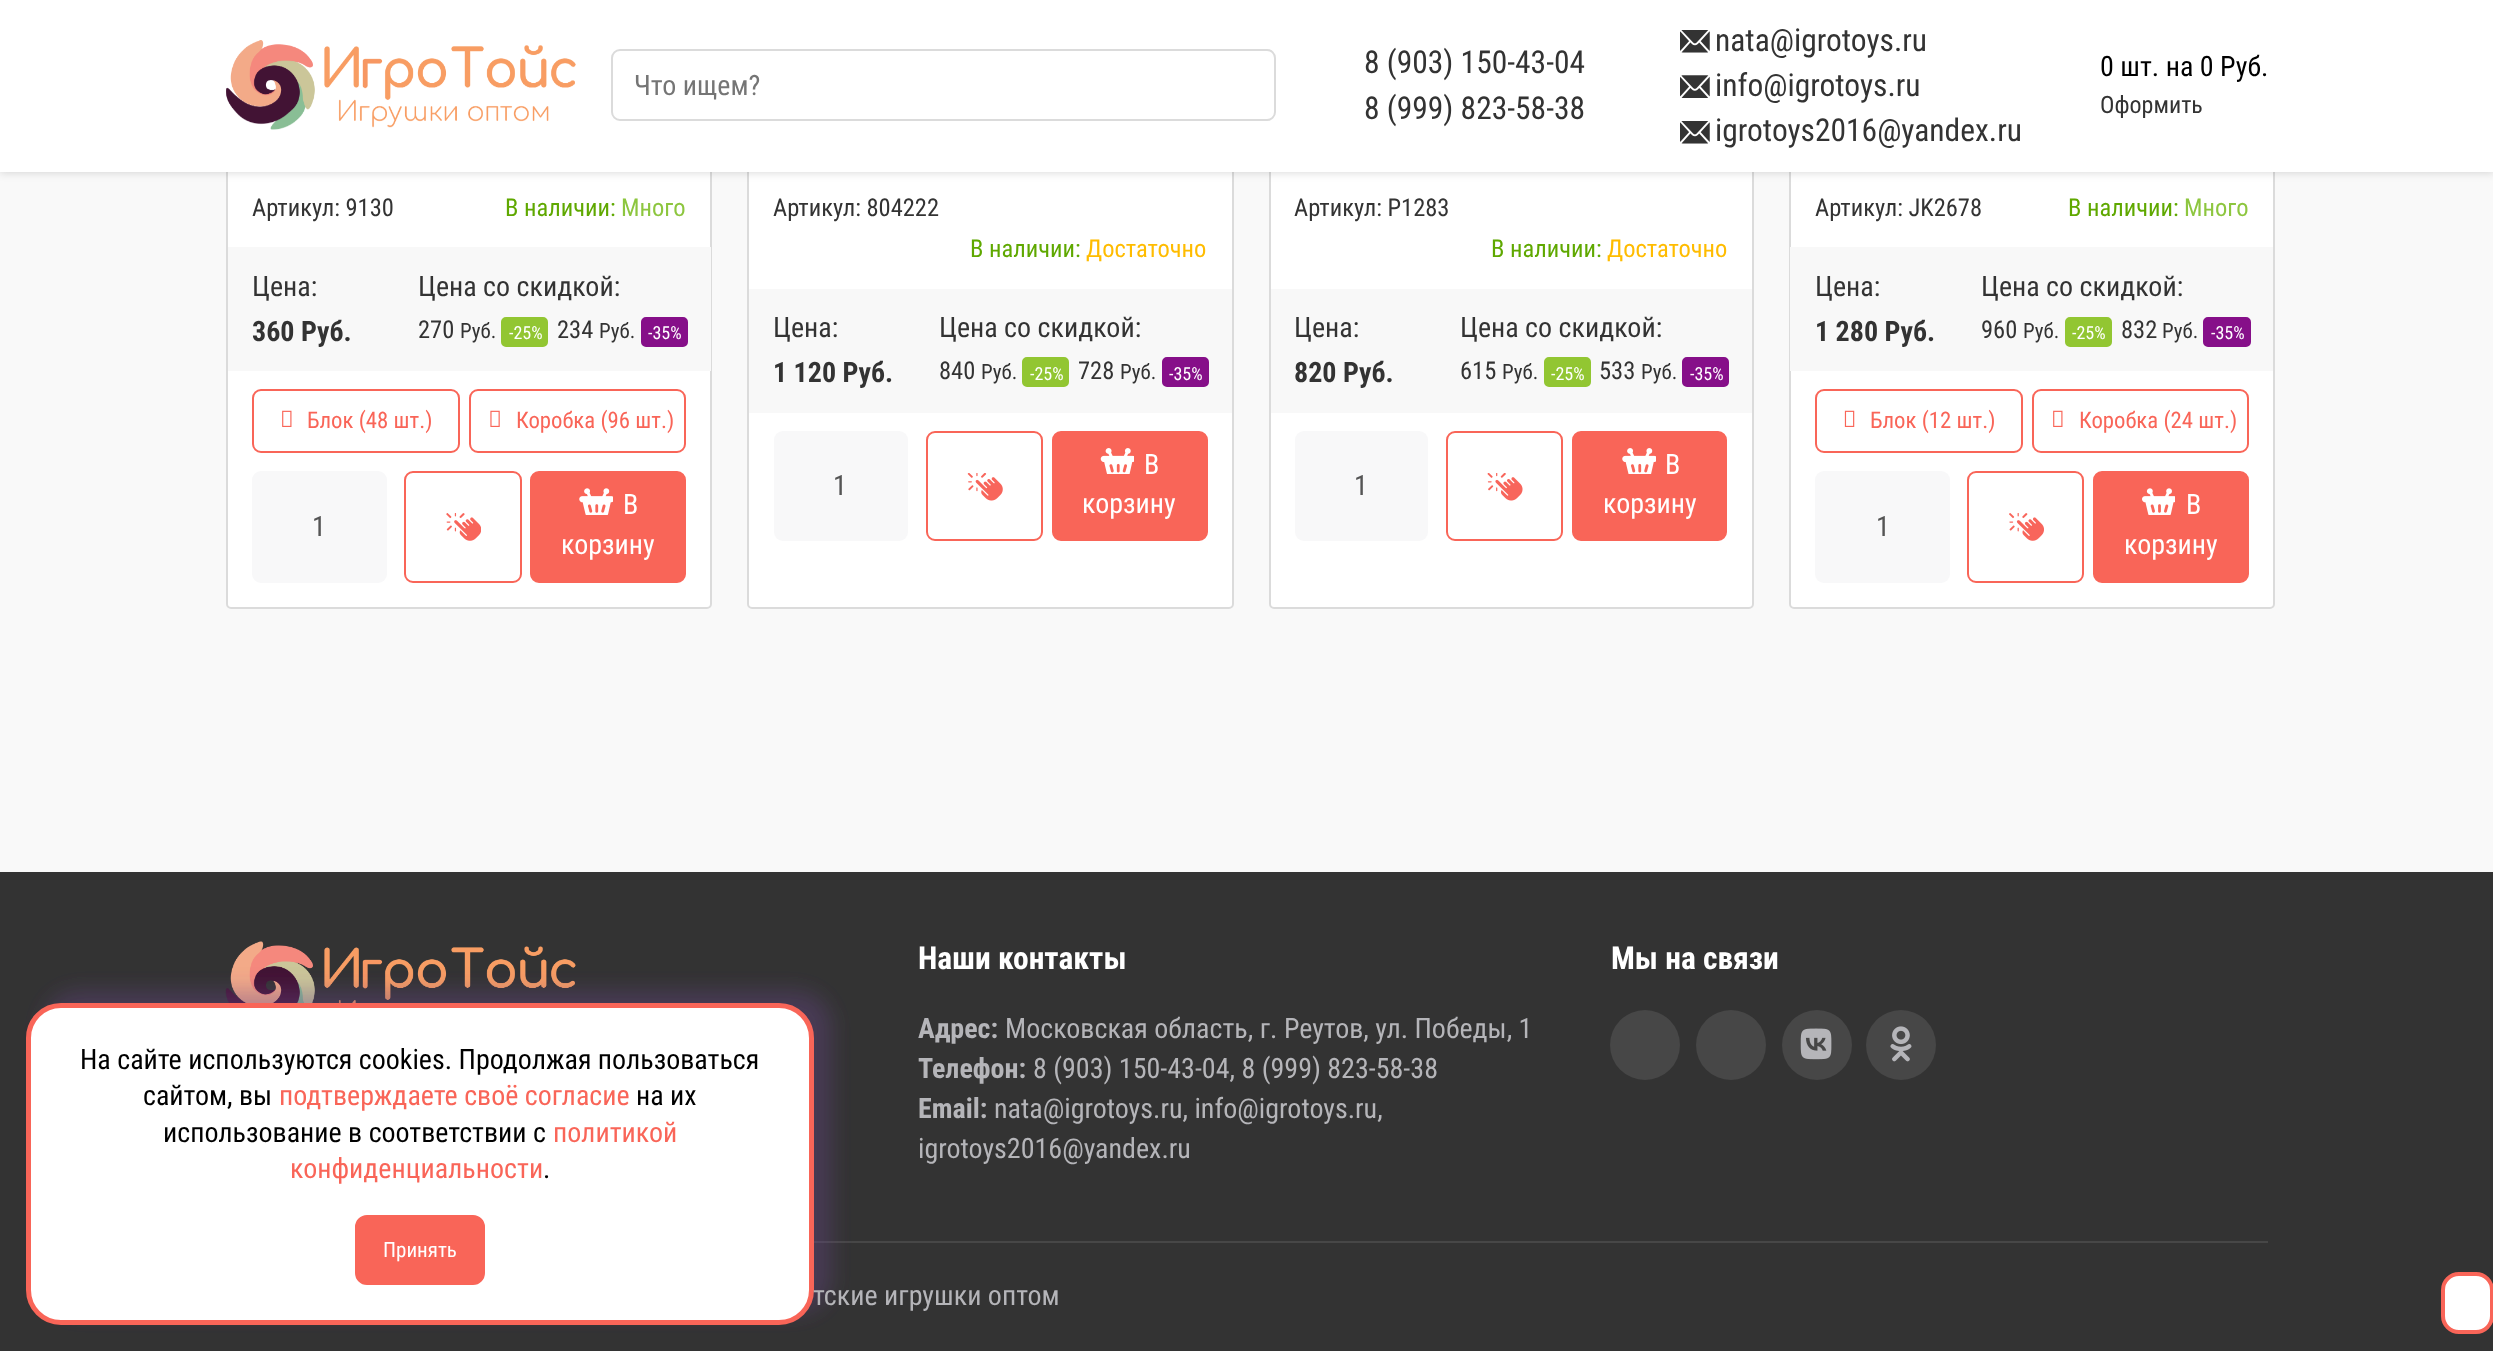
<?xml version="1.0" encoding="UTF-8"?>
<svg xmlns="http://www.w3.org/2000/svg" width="2493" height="1351">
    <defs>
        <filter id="blur1" x="-50%" y="-200%" width="200%" height="500%"><feGaussianBlur stdDeviation="4.5"/></filter>
        <filter id="blur2" x="-50%" y="-200%" width="200%" height="500%"><feGaussianBlur stdDeviation="10.5"/></filter>
    </defs>
    <rect width="100%" height="100%" fill="#F9F9F9"/>
    <rect x="227" y="-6" width="484" height="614" rx="4" fill="#FFFFFF" stroke="#DBDBDB" stroke-width="2"/>
    <rect x="748" y="-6" width="485" height="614" rx="4" fill="#FFFFFF" stroke="#DBDBDB" stroke-width="2"/>
    <rect x="1270" y="-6" width="483" height="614" rx="4" fill="#FFFFFF" stroke="#DBDBDB" stroke-width="2"/>
    <rect x="1790" y="-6" width="484" height="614" rx="4" fill="#FFFFFF" stroke="#DBDBDB" stroke-width="2"/>
    <rect x="0" y="2" width="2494" height="171" fill="#000000" fill-opacity="0.14" filter="url(#blur1)"/>
    <rect x="0" y="0" width="2493" height="172" fill="#FFFFFF"/>
    <image x="226" y="40" width="350" height="90" href="img_01.png"/>
    <rect x="612" y="50" width="663" height="70" rx="8" fill="none" stroke="#DBDBDB" stroke-width="2"/>
    <text x="634" y="95" font-family="Roboto Condensed" font-size="28" fill="#757575">Что ищем?</text>
    <text font-family="Roboto Condensed" font-size="31.5" fill="#333333">
        <tspan x="1364" y="73">8 (903) 150-43-04</tspan>
        <tspan x="1364" y="119">8 (999) 823-58-38</tspan>
    </text>
    <image x="1680" y="30" width="30" height="23" href="img_02.png"/>
    <text x="1715" y="51" font-family="Roboto Condensed" font-size="31.5" fill="#333333">nata@igrotoys.ru</text>
    <image x="1680" y="75" width="30" height="23" href="img_03.png"/>
    <text x="1715" y="96" font-family="Roboto Condensed" font-size="31.5" fill="#333333">info@igrotoys.ru</text>
    <image x="1680" y="121" width="30" height="23" href="img_02.png"/>
    <text x="1715" y="141" font-family="Roboto Condensed" font-size="31.5" fill="#333333">igrotoys2016@yandex.ru</text>
    <text x="2100" y="76" font-family="Roboto Condensed" font-size="28" fill="#000000">0 шт. на 0 Руб.</text>
    <text x="2100" y="113" font-family="Roboto Condensed" font-size="24" fill="#333333">Оформить</text>
    <text x="252" y="216" font-family="Roboto Condensed" font-size="24.5" fill="#333333">Артикул: 9130</text>
    <text x="505" y="216" font-family="Roboto Condensed" font-size="24.5" fill="#5FA800">В наличии:</text>
    <text x="621" y="216" font-family="Roboto Condensed" font-size="24.5" fill="#8DC63F">Много</text>
    <rect x="228" y="247" width="483" height="124" fill="#F8F8F8"/>
    <text x="252" y="296" font-family="Roboto Condensed" font-size="28" fill="#333333">Цена:</text>
    <text x="418" y="296" font-family="Roboto Condensed" font-size="28" fill="#333333">Цена со скидкой:</text>
    <text x="252" y="341" font-family="Roboto Condensed" font-size="28" font-weight="700" fill="#333333">360 Руб.</text>
    <text x="418" y="338" font-family="Roboto Condensed" font-size="24.5" fill="#333333">270</text>
    <text x="460" y="338" font-family="Roboto Condensed" font-size="21" fill="#333333">Руб.</text>
    <rect x="502" y="318" width="45" height="28" rx="4" fill="#92C632" stroke="#92C632" stroke-width="2"/>
    <text x="509" y="339" font-family="Roboto Condensed" font-size="18" fill="#FFFFFF">-25%</text>
    <text x="557" y="338" font-family="Roboto Condensed" font-size="24.5" fill="#333333">234</text>
    <text x="599" y="338" font-family="Roboto Condensed" font-size="21" fill="#333333">Руб.</text>
    <rect x="642" y="318" width="45" height="28" rx="4" fill="#860F89" stroke="#860F89" stroke-width="2"/>
    <text x="648" y="339" font-family="Roboto Condensed" font-size="18" fill="#FFFFFF">-35%</text>
    <rect x="253" y="390" width="206" height="62" rx="8" fill="none" stroke="#F96558" stroke-width="2"/>
    <image x="282" y="410" width="10" height="17" href="img_04.png"/>
    <text x="307" y="428" font-family="Roboto Condensed" font-size="22.75" fill="#F96558">Блок (48 шт.)</text>
    <rect x="470" y="390" width="215" height="62" rx="8" fill="none" stroke="#F96558" stroke-width="2"/>
    <image x="490" y="410" width="10" height="17" href="img_05.png"/>
    <text x="516" y="428" font-family="Roboto Condensed" font-size="22.75" fill="#F96558">Коробка (96 шт.)</text>
    <rect x="252" y="471" width="135" height="112" rx="9" fill="#F8F8F9"/>
    <text x="312" y="536" font-family="Roboto Condensed" font-size="28" fill="#555555">1</text>
    <rect x="405" y="472" width="116" height="110" rx="8" fill="none" stroke="#F96558" stroke-width="2"/>
    <image x="446" y="513" width="35" height="28" href="img_06.png"/>
    <rect x="531" y="472" width="154" height="110" rx="8" fill="#F96558" stroke="#F96558" stroke-width="2"/>
    <image x="579" y="488" width="34" height="27" href="img_07.png"/>
    <text x="623" y="514" font-family="Roboto Condensed" font-size="28" fill="#FFFFFF">В</text>
    <text x="561" y="554" font-family="Roboto Condensed" font-size="28" fill="#FFFFFF">корзину</text>
    <text x="773" y="216" font-family="Roboto Condensed" font-size="24.5" fill="#333333">Артикул: 804222</text>
    <text x="970" y="257" font-family="Roboto Condensed" font-size="24.5" fill="#5FA800">В наличии:</text>
    <text x="1086" y="257" font-family="Roboto Condensed" font-size="24.5" fill="#FFBC00">Достаточно</text>
    <rect x="749" y="289" width="483" height="124" fill="#F8F8F8"/>
    <text x="773" y="337" font-family="Roboto Condensed" font-size="28" fill="#333333">Цена:</text>
    <text x="939" y="337" font-family="Roboto Condensed" font-size="28" fill="#333333">Цена со скидкой:</text>
    <text x="773" y="382" font-family="Roboto Condensed" font-size="28" font-weight="700" fill="#333333">1 120 Руб.</text>
    <text x="939" y="379" font-family="Roboto Condensed" font-size="24.5" fill="#333333">840</text>
    <text x="981" y="379" font-family="Roboto Condensed" font-size="21" fill="#333333">Руб.</text>
    <rect x="1023" y="358" width="45" height="28" rx="4" fill="#92C632" stroke="#92C632" stroke-width="2"/>
    <text x="1030" y="380" font-family="Roboto Condensed" font-size="18" fill="#FFFFFF">-25%</text>
    <text x="1078" y="379" font-family="Roboto Condensed" font-size="24.5" fill="#333333">728</text>
    <text x="1120" y="379" font-family="Roboto Condensed" font-size="21" fill="#333333">Руб.</text>
    <rect x="1163" y="358" width="45" height="28" rx="4" fill="#860F89" stroke="#860F89" stroke-width="2"/>
    <text x="1169" y="380" font-family="Roboto Condensed" font-size="18" fill="#FFFFFF">-35%</text>
    <rect x="774" y="431" width="134" height="110" rx="9" fill="#F8F8F9"/>
    <text x="833" y="495" font-family="Roboto Condensed" font-size="28" fill="#555555">1</text>
    <rect x="927" y="432" width="115" height="108" rx="8" fill="none" stroke="#F96558" stroke-width="2"/>
    <image x="967" y="473" width="36" height="28" href="img_08.png"/>
    <rect x="1053" y="432" width="154" height="108" rx="8" fill="#F96558" stroke="#F96558" stroke-width="2"/>
    <image x="1100" y="448" width="34" height="26" href="img_09.png"/>
    <text x="1144" y="474" font-family="Roboto Condensed" font-size="28" fill="#FFFFFF">В</text>
    <text x="1082" y="513" font-family="Roboto Condensed" font-size="28" fill="#FFFFFF">корзину</text>
    <text x="1294" y="216" font-family="Roboto Condensed" font-size="24.5" fill="#333333">Артикул: P1283</text>
    <text x="1491" y="257" font-family="Roboto Condensed" font-size="24.5" fill="#5FA800">В наличии:</text>
    <text x="1607" y="257" font-family="Roboto Condensed" font-size="24.5" fill="#FFBC00">Достаточно</text>
    <rect x="1271" y="289" width="481" height="124" fill="#F8F8F8"/>
    <text x="1294" y="337" font-family="Roboto Condensed" font-size="28" fill="#333333">Цена:</text>
    <text x="1460" y="337" font-family="Roboto Condensed" font-size="28" fill="#333333">Цена со скидкой:</text>
    <text x="1294" y="382" font-family="Roboto Condensed" font-size="28" font-weight="700" fill="#333333">820 Руб.</text>
    <text x="1460" y="379" font-family="Roboto Condensed" font-size="24.5" fill="#333333">615</text>
    <text x="1502" y="379" font-family="Roboto Condensed" font-size="21" fill="#333333">Руб.</text>
    <rect x="1545" y="358" width="45" height="28" rx="4" fill="#92C632" stroke="#92C632" stroke-width="2"/>
    <text x="1551" y="380" font-family="Roboto Condensed" font-size="18" fill="#FFFFFF">-25%</text>
    <text x="1599" y="379" font-family="Roboto Condensed" font-size="24.5" fill="#333333">533</text>
    <text x="1641" y="379" font-family="Roboto Condensed" font-size="21" fill="#333333">Руб.</text>
    <rect x="1683" y="358" width="45" height="28" rx="4" fill="#860F89" stroke="#860F89" stroke-width="2"/>
    <text x="1690" y="380" font-family="Roboto Condensed" font-size="18" fill="#FFFFFF">-35%</text>
    <rect x="1295" y="431" width="133" height="110" rx="9" fill="#F8F8F9"/>
    <text x="1354" y="495" font-family="Roboto Condensed" font-size="28" fill="#555555">1</text>
    <rect x="1447" y="432" width="115" height="108" rx="8" fill="none" stroke="#F96558" stroke-width="2"/>
    <image x="1487" y="473" width="36" height="28" href="img_10.png"/>
    <rect x="1573" y="432" width="153" height="108" rx="8" fill="#F96558" stroke="#F96558" stroke-width="2"/>
    <image x="1622" y="448" width="34" height="26" href="img_11.png"/>
    <text x="1665" y="474" font-family="Roboto Condensed" font-size="28" fill="#FFFFFF">В</text>
    <text x="1603" y="513" font-family="Roboto Condensed" font-size="28" fill="#FFFFFF">корзину</text>
    <text x="1815" y="216" font-family="Roboto Condensed" font-size="24.5" fill="#333333">Артикул: JK2678</text>
    <text x="2068" y="216" font-family="Roboto Condensed" font-size="24.5" fill="#5FA800">В наличии:</text>
    <text x="2184" y="216" font-family="Roboto Condensed" font-size="24.5" fill="#8DC63F">Много</text>
    <rect x="1790" y="247" width="483" height="124" fill="#F8F8F8"/>
    <text x="1815" y="296" font-family="Roboto Condensed" font-size="28" fill="#333333">Цена:</text>
    <text x="1981" y="296" font-family="Roboto Condensed" font-size="28" fill="#333333">Цена со скидкой:</text>
    <text x="1815" y="341" font-family="Roboto Condensed" font-size="28" font-weight="700" fill="#333333">1 280 Руб.</text>
    <text x="1981" y="338" font-family="Roboto Condensed" font-size="24.5" fill="#333333">960</text>
    <text x="2023" y="338" font-family="Roboto Condensed" font-size="21" fill="#333333">Руб.</text>
    <rect x="2066" y="318" width="45" height="28" rx="4" fill="#92C632" stroke="#92C632" stroke-width="2"/>
    <text x="2072" y="339" font-family="Roboto Condensed" font-size="18" fill="#FFFFFF">-25%</text>
    <text x="2121" y="338" font-family="Roboto Condensed" font-size="24.5" fill="#333333">832</text>
    <text x="2162" y="338" font-family="Roboto Condensed" font-size="21" fill="#333333">Руб.</text>
    <rect x="2204" y="318" width="46" height="28" rx="4" fill="#860F89" stroke="#860F89" stroke-width="2"/>
    <text x="2211" y="339" font-family="Roboto Condensed" font-size="18" fill="#FFFFFF">-35%</text>
    <rect x="1816" y="390" width="206" height="62" rx="8" fill="none" stroke="#F96558" stroke-width="2"/>
    <image x="1844" y="410" width="11" height="17" href="img_12.png"/>
    <text x="1870" y="428" font-family="Roboto Condensed" font-size="22.75" fill="#F96558">Блок (12 шт.)</text>
    <rect x="2033" y="390" width="215" height="62" rx="8" fill="none" stroke="#F96558" stroke-width="2"/>
    <image x="2053" y="410" width="10" height="17" href="img_04.png"/>
    <text x="2079" y="428" font-family="Roboto Condensed" font-size="22.75" fill="#F96558">Коробка (24 шт.)</text>
    <rect x="1815" y="471" width="135" height="112" rx="9" fill="#F8F8F9"/>
    <text x="1876" y="536" font-family="Roboto Condensed" font-size="28" fill="#555555">1</text>
    <rect x="1968" y="472" width="115" height="110" rx="8" fill="none" stroke="#F96558" stroke-width="2"/>
    <image x="2009" y="513" width="35" height="28" href="img_13.png"/>
    <rect x="2094" y="472" width="154" height="110" rx="8" fill="#F96558" stroke="#F96558" stroke-width="2"/>
    <image x="2142" y="488" width="33" height="27" href="img_14.png"/>
    <text x="2186" y="514" font-family="Roboto Condensed" font-size="28" fill="#FFFFFF">В</text>
    <text x="2124" y="554" font-family="Roboto Condensed" font-size="28" fill="#FFFFFF">корзину</text>
    <rect x="0" y="872" width="2493" height="479" fill="#333333"/>
    <image x="225" y="941" width="351" height="62" href="img_15.png"/>
    <rect x="814" y="1241" width="1454" height="2" fill="#474747"/>
    <rect x="44" y="991" width="787" height="322" rx="35" fill="#674587" fill-opacity="0.4" filter="url(#blur2)"/>
    <rect x="28.5" y="1005.5" width="783" height="317" rx="32.5" fill="#FFFFFF" stroke="#F96558" stroke-width="5"/>
    <text x="80" y="1069" font-family="Roboto Condensed" font-size="28" fill="#000000">На сайте используются cookies. Продолжая пользоваться</text>
    <text x="143" y="1105" font-family="Roboto Condensed" font-size="28" fill="#000000">сайтом, вы</text>
    <text x="279" y="1105" font-family="Roboto Condensed" font-size="28" fill="#F96558">подтверждаете своё согласие</text>
    <text x="636" y="1105" font-family="Roboto Condensed" font-size="28" fill="#000000">на их</text>
    <text x="163" y="1142" font-family="Roboto Condensed" font-size="28" fill="#000000">использование в соответствии с</text>
    <text x="553" y="1142" font-family="Roboto Condensed" font-size="28" fill="#F96558">политикой</text>
    <text x="290" y="1178" font-family="Roboto Condensed" font-size="28" fill="#F96558">конфиденциальности</text>
    <text x="543" y="1178" font-family="Roboto Condensed" font-size="28" fill="#000000">.</text>
    <rect x="356" y="1216" width="128" height="68" rx="11" fill="#F96558" stroke="#F96558" stroke-width="2"/>
    <text x="383" y="1257" font-family="Roboto Condensed" font-size="21" fill="#FFFFFF">Принять</text>
    <text x="918" y="969" font-family="Roboto Condensed" font-size="31.5" font-weight="700" fill="#FFFFFF">Наши контакты</text>
    <text x="918" y="1038" font-family="Roboto Condensed" font-size="28" font-weight="700" fill="#B5B5B9">Адрес:</text>
    <text x="1005" y="1038" font-family="Roboto Condensed" font-size="28" fill="#B5B5B9">Московская область, г. Реутов, ул. Победы, 1</text>
    <text x="918" y="1078" font-family="Roboto Condensed" font-size="28" font-weight="700" fill="#B5B5B9">Телефон:</text>
    <text x="1033" y="1078" font-family="Roboto Condensed" font-size="28" fill="#B5B5B9">8 (903) 150-43-04, 8 (999) 823-58-38</text>
    <text x="918" y="1118" font-family="Roboto Condensed" font-size="28" font-weight="700" fill="#B5B5B9">Email:</text>
    <text x="994" y="1118" font-family="Roboto Condensed" font-size="28" fill="#B5B5B9">nata@igrotoys.ru, info@igrotoys.ru,</text>
    <text x="918" y="1158" font-family="Roboto Condensed" font-size="28" fill="#B5B5B9">igrotoys2016@yandex.ru</text>
    <text x="1611" y="969" font-family="Roboto Condensed" font-size="31.5" font-weight="700" fill="#FFFFFF">Мы на связи</text>
    <circle cx="1645" cy="1045" r="35" fill="#474747"/>
    <circle cx="1731" cy="1045" r="35" fill="#474747"/>
    <circle cx="1817" cy="1045" r="35" fill="#474747"/>
    <image x="1800" y="1028" width="32" height="32" href="img_16.png"/>
    <circle cx="1901" cy="1045" r="35" fill="#474747"/>
    <image x="1890" y="1026" width="22" height="36" href="img_17.png"/>
    <text x="813" y="1305" font-family="Roboto Condensed" font-size="28" fill="#B5B5B9">тские игрушки оптом</text>
    <rect x="2443" y="1274" width="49" height="58" rx="16" fill="#FFFFFF" stroke="#F96558" stroke-width="4"/>
</svg>
